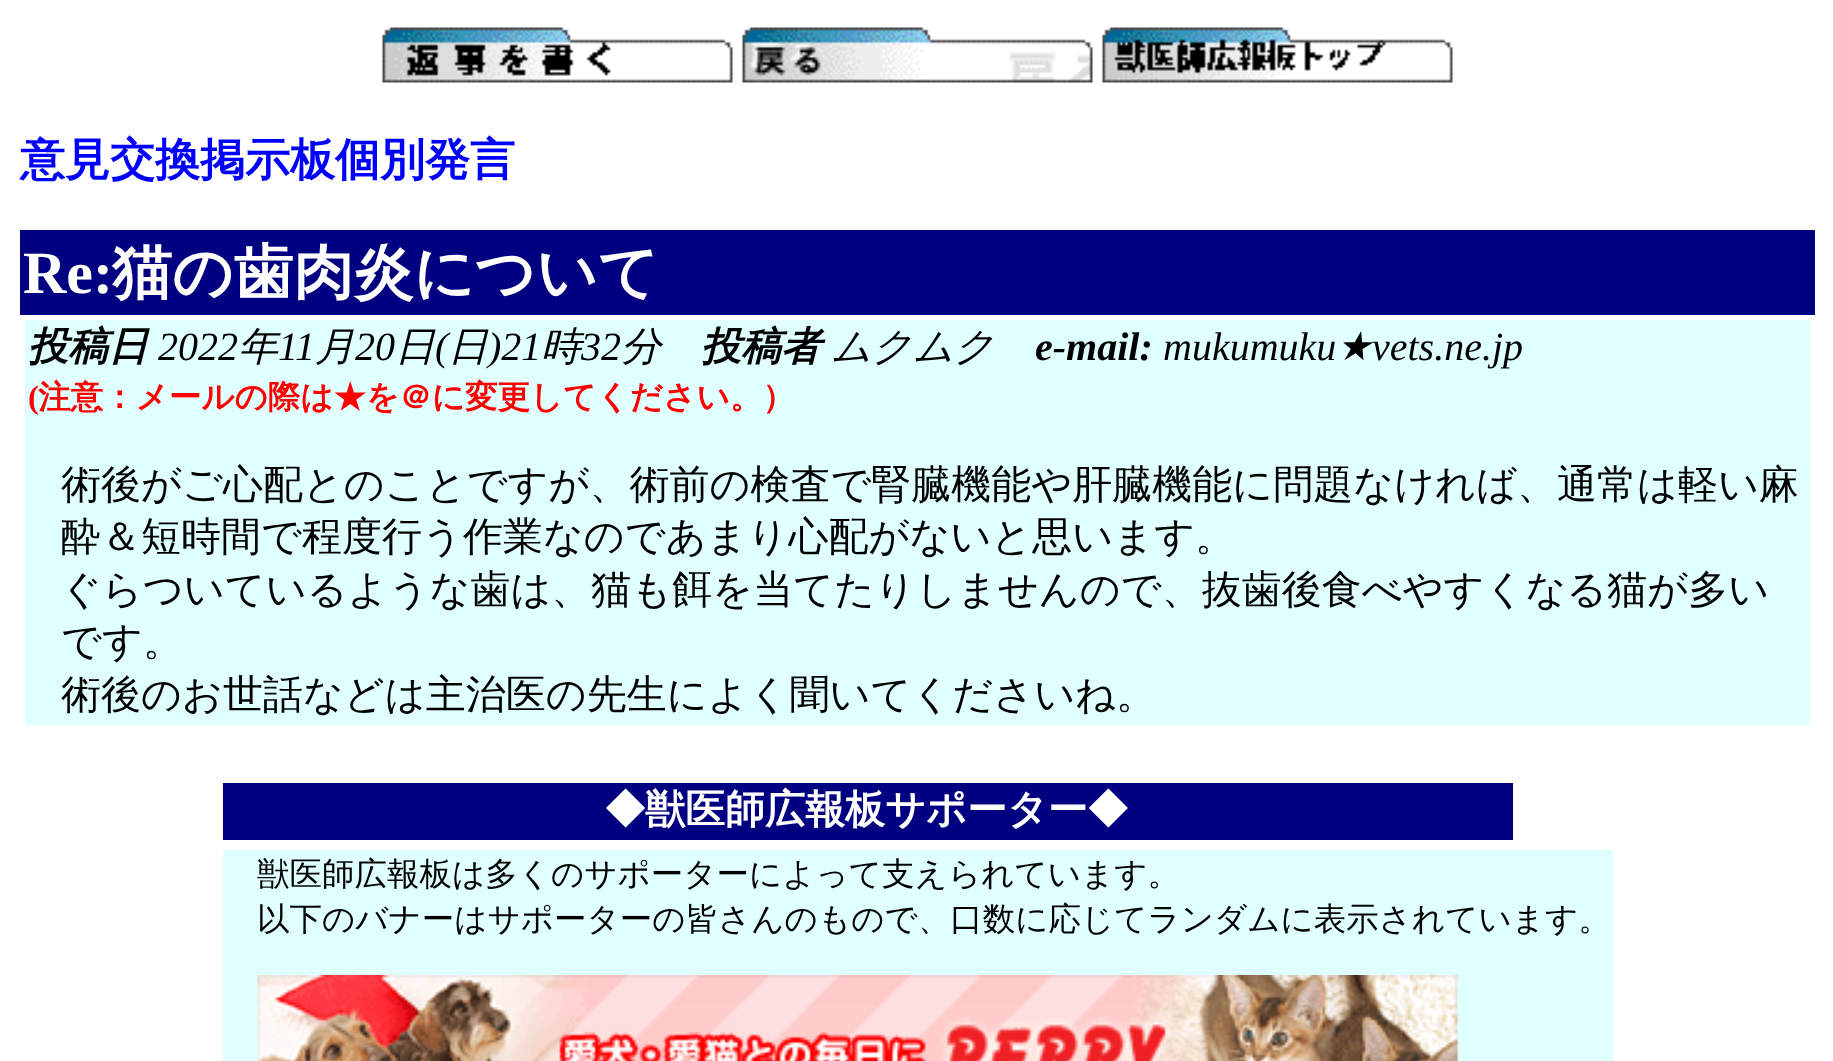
<?xml version="1.0" encoding="UTF-8"?>
<svg xmlns="http://www.w3.org/2000/svg" width="1833" height="1061">
    <rect width="100%" height="100%" fill="#FFFFFF"/>
    <image x="382" y="27" width="351" height="56" href="img_01.png"/>
    <image x="742" y="27" width="351" height="56" href="img_02.png"/>
    <image x="1102" y="27" width="351" height="56" href="img_03.png"/>
    <text x="20" y="175" font-family="WenQuanYi Zen Hei" font-size="45" font-weight="700" fill="#0000FF">意見交換掲示板個別発言</text>
    <rect x="20" y="230" width="1795" height="85" fill="#000080"/>
    <text x="23" y="293" font-family="Liberation Serif" font-size="60" font-weight="700" fill="#FFFFFF">Re:</text>
    <text x="112" y="293" font-family="WenQuanYi Zen Hei" font-size="60" font-weight="700" fill="#FFFFFF">猫の歯肉炎について</text>
    <rect x="25" y="320" width="1785" height="405" fill="#E0FFFF"/>
    <text x="28" y="360" font-family="WenQuanYi Zen Hei" font-size="40" font-weight="700" font-style="italic" fill="#000000">投稿日</text>
    <text x="158" y="360" font-family="Liberation Serif" font-size="40" font-style="italic" fill="#000000">2022</text>
    <text x="238" y="360" font-family="WenQuanYi Zen Hei" font-size="40" font-weight="500" font-style="italic" fill="#000000">年</text>
    <text x="278" y="360" font-family="Liberation Serif" font-size="40" font-style="italic" fill="#000000">11</text>
    <text x="315" y="360" font-family="WenQuanYi Zen Hei" font-size="40" font-weight="500" font-style="italic" fill="#000000">月</text>
    <text x="355" y="360" font-family="Liberation Serif" font-size="40" font-style="italic" fill="#000000">20</text>
    <text x="395" y="360" font-family="WenQuanYi Zen Hei" font-size="40" font-weight="500" font-style="italic" fill="#000000">日</text>
    <text x="435" y="360" font-family="Liberation Serif" font-size="40" font-style="italic" fill="#000000">(</text>
    <text x="448" y="360" font-family="WenQuanYi Zen Hei" font-size="40" font-weight="500" font-style="italic" fill="#000000">日</text>
    <text x="488" y="360" font-family="Liberation Serif" font-size="40" font-style="italic" fill="#000000">)21</text>
    <text x="541" y="360" font-family="WenQuanYi Zen Hei" font-size="40" font-weight="500" font-style="italic" fill="#000000">時</text>
    <text x="581" y="360" font-family="Liberation Serif" font-size="40" font-style="italic" fill="#000000">32</text>
    <text x="621" y="360" font-family="WenQuanYi Zen Hei" font-size="40" font-weight="500" font-style="italic" fill="#000000">分</text>
    <text x="701" y="360" font-family="WenQuanYi Zen Hei" font-size="40" font-weight="700" font-style="italic" fill="#000000">投稿者</text>
    <text x="831" y="360" font-family="WenQuanYi Zen Hei" font-size="40" font-weight="500" font-style="italic" fill="#000000">ムクムク</text>
    <text x="1035" y="360" font-family="Liberation Serif" font-size="40" font-weight="700" font-style="italic" fill="#000000">e-mail:</text>
    <text x="1163" y="360" font-family="Liberation Serif" font-size="40" font-style="italic" fill="#000000">mukumuku</text>
    <text x="1336" y="360" font-family="DejaVu Sans" font-size="40" font-style="italic" fill="#000000">★</text>
    <text x="1372" y="360" font-family="Liberation Serif" font-size="40" font-style="italic" fill="#000000">vets.ne.jp</text>
    <text x="28" y="408" font-family="Liberation Serif" font-size="32.5" font-weight="700" fill="#FF0000">(</text>
    <text x="38" y="408" font-family="WenQuanYi Zen Hei" font-size="32.5" font-weight="700" fill="#FF0000">注意：メールの際は★を＠に変更してください。）</text>
    <text font-family="WenQuanYi Zen Hei" font-size="40" font-weight="500" fill="#000000">
        <tspan x="61" y="498">術後がご心配とのことですが、術前の検査で腎臓機能や肝臓機能に問題なければ、通常は軽い麻</tspan>
        <tspan x="61" y="550">酔＆短時間で程度行う作業なのであまり心配がないと思います。</tspan>
        <tspan x="61" y="603">ぐらついているような歯は、猫も餌を当てたりしませんので、抜歯後食べやすくなる猫が多い</tspan>
        <tspan x="61" y="655">です。</tspan>
        <tspan x="61" y="708">術後のお世話などは主治医の先生によく聞いてくださいね。</tspan>
    </text>
    <rect x="223" y="783" width="1290" height="57" fill="#000080"/>
    <text x="605" y="823" font-family="WenQuanYi Zen Hei" font-size="40" font-weight="700" fill="#FFFFFF">◆獣医師広報板サポーター◆</text>
    <rect x="223" y="850" width="1390" height="211" fill="#E0FFFF"/>
    <text font-family="WenQuanYi Zen Hei" font-size="32.5" font-weight="500" fill="#000000">
        <tspan x="257" y="885">獣医師広報板は多くのサポーターによって支えられています。</tspan>
        <tspan x="257" y="930">以下のバナーはサポーターの皆さんのもので、口数に応じてランダムに表示されています。</tspan>
    </text>
    <image x="257" y="975" width="1201" height="86" href="img_04.png"/>
</svg>
